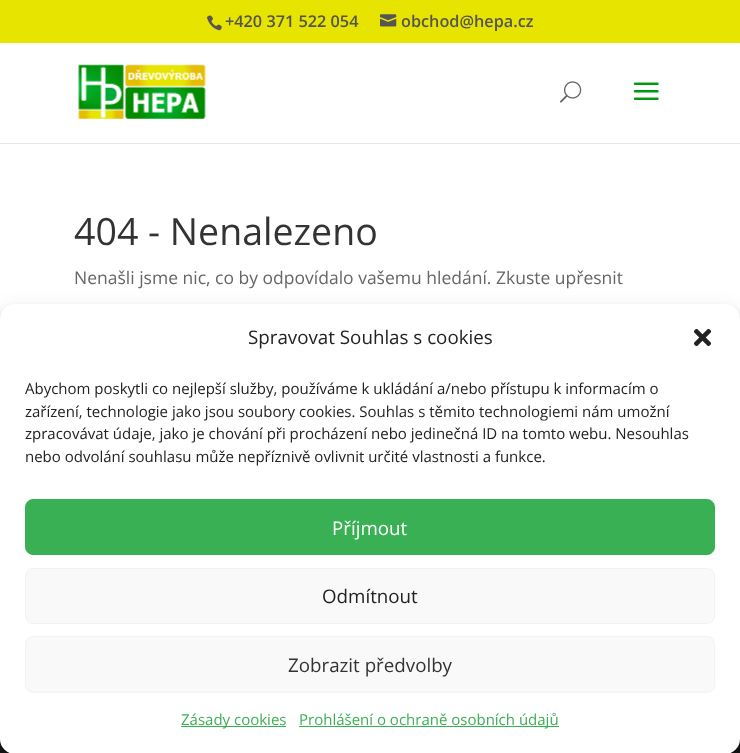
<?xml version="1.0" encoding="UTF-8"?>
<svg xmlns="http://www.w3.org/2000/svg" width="740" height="753">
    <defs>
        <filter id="blur1" x="-50%" y="-200%" width="200%" height="500%"><feGaussianBlur stdDeviation="4"/></filter>
        <filter id="blur2" x="-50%" y="-200%" width="200%" height="500%"><feGaussianBlur stdDeviation="12.5"/></filter>
    </defs>
    <rect width="100%" height="100%" fill="#FFFFFF"/>
    <rect x="0" y="0" width="740" height="43" fill="#E7E400"/>
    <image x="207" y="15" width="15" height="16" href="img_01.png"/>
    <text x="225" y="27" font-family="Open Sans" font-size="16.25" font-weight="600" fill="#555555">+420 371 522 054</text>
    <image x="380" y="14" width="17" height="13" href="img_02.png"/>
    <text x="401" y="27" font-family="Open Sans" font-size="16.25" font-weight="600" fill="#555555">obchod@hepa.cz</text>
    <rect x="0" y="143" width="740" height="1" fill="#E6E6E6"/>
    <image x="78" y="64" width="128" height="55" href="img_03.png"/>
    <image x="560" y="81" width="22" height="22" href="img_04.png"/>
    <image x="633" y="82" width="26" height="18" href="img_05.png"/>
    <text x="74" y="245" font-family="Open Sans" font-size="37.5" fill="#333333">404 - Nenalezeno</text>
    <text x="74" y="284" font-family="Open Sans" font-size="17.5" fill="#666666">Nenašli jsme nic, co by odpovídalo vašemu hledání. Zkuste upřesnit</text>
    <rect x="0" y="739" width="740" height="14" fill="#171717"/>
    <rect x="0" y="311" width="740" height="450" rx="15" fill="#000000" fill-opacity="0.23" filter="url(#blur1)"/>
    <rect x="0" y="316" width="740" height="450" rx="15" fill="#000000" fill-opacity="0.19" filter="url(#blur2)"/>
    <rect x="0" y="304" width="740" height="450" rx="15" fill="#FFFFFF"/>
    <text x="248" y="344" font-family="Open Sans" font-size="18.75" fill="#222222">Spravovat Souhlas s cookies</text>
    <image x="693" y="328" width="19" height="19" href="img_06.png"/>
    <text font-family="Open Sans" font-size="15" fill="#222222">
        <tspan x="25" y="394">Abychom poskytli co nejlepší služby, používáme k ukládání a/nebo přístupu k informacím o</tspan>
        <tspan x="25" y="417">zařízení, technologie jako jsou soubory cookies. Souhlas s těmito technologiemi nám umožní</tspan>
        <tspan x="25" y="439">zpracovávat údaje, jako je chování při procházení nebo jedinečná ID na tomto webu. Nesouhlas</tspan>
        <tspan x="25" y="462">nebo odvolání souhlasu může nepříznivě ovlivnit určité vlastnosti a funkce.</tspan>
    </text>
    <rect x="25.5" y="499.5" width="689" height="55" rx="7.5" fill="#3AB054" stroke="#3AB054"/>
    <text x="332" y="535" font-family="Open Sans" font-size="18.75" fill="#FFFFFF">Příjmout</text>
    <rect x="25.5" y="568.5" width="689" height="55" rx="7.5" fill="#F9F9F9" stroke="#F2F2F2"/>
    <text x="322" y="603" font-family="Open Sans" font-size="18.75" fill="#222222">Odmítnout</text>
    <rect x="25.5" y="636.5" width="689" height="56" rx="7.5" fill="#F9F9F9" stroke="#F2F2F2"/>
    <text x="288" y="672" font-family="Open Sans" font-size="18.75" fill="#333333">Zobrazit předvolby</text>
    <rect x="181" y="726" width="105" height="1" fill="#3AB054"/>
    <text x="181" y="725" font-family="Open Sans" font-size="15" fill="#3AB054">Zásady cookies</text>
    <rect x="299" y="726" width="260" height="1" fill="#3AB054"/>
    <text x="299" y="725" font-family="Open Sans" font-size="15" fill="#3AB054">Prohlášení o ochraně osobních údajů</text>
</svg>
